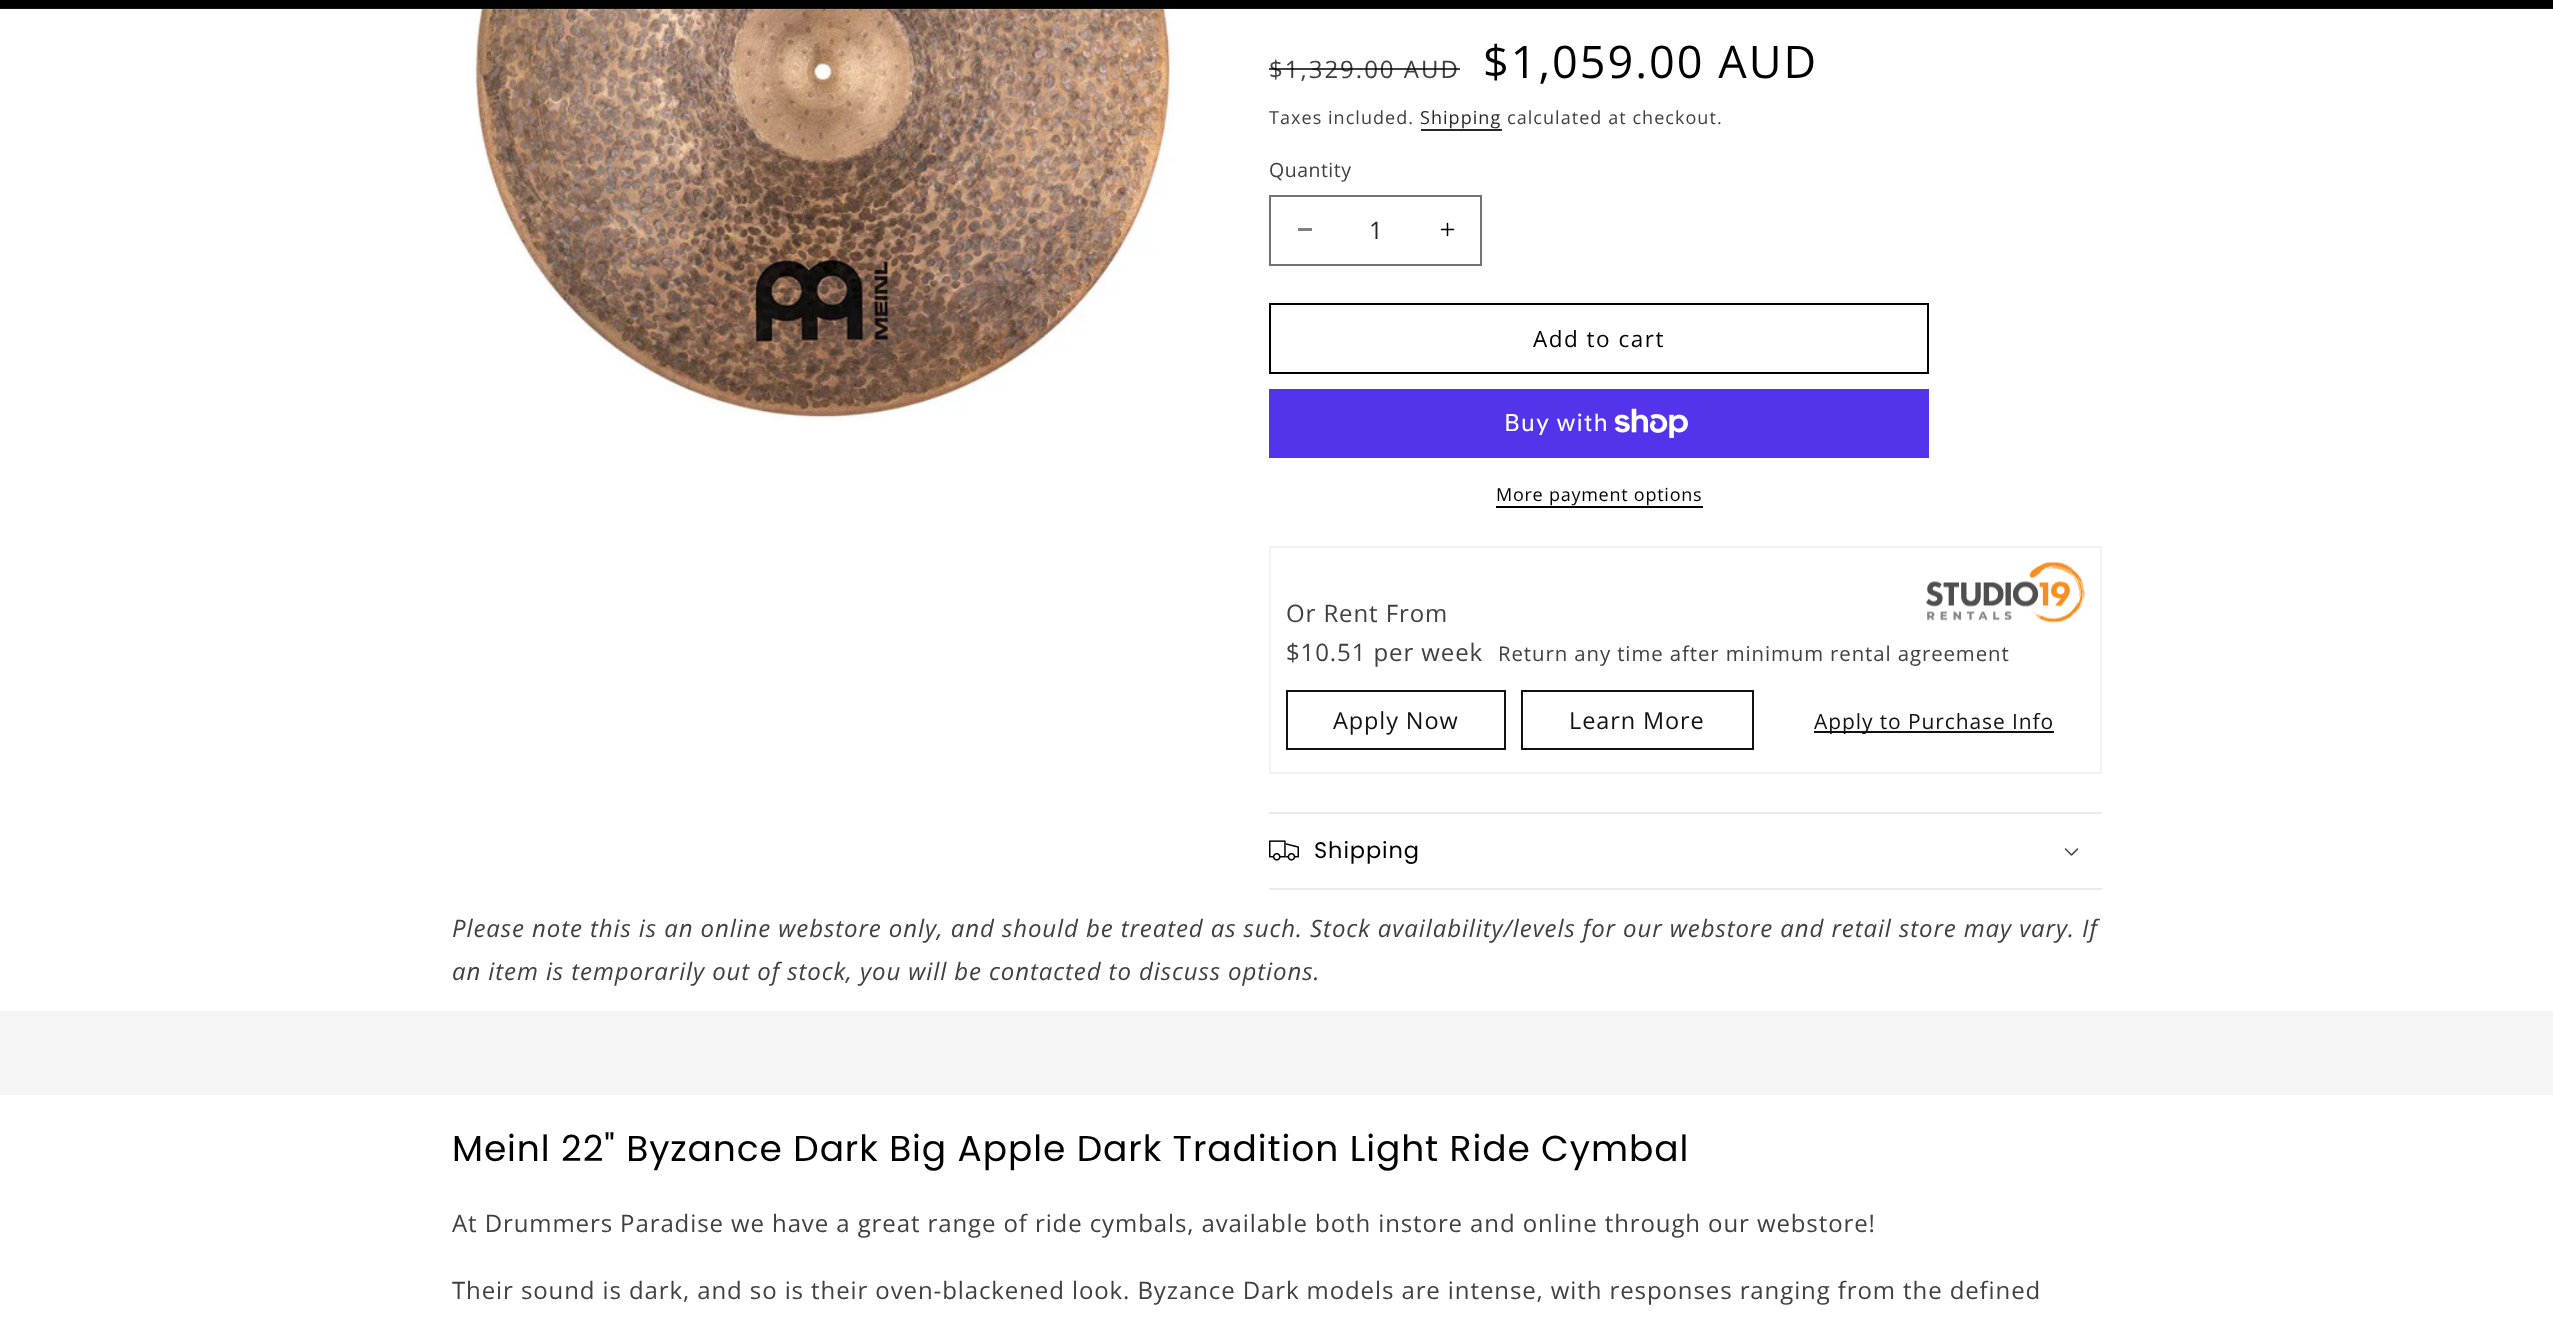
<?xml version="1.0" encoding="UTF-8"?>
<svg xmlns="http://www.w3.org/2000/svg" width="2553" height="1317">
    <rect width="100%" height="100%" fill="#FFFFFF"/>
    <rect x="0" y="0" width="2553" height="9" fill="#000000"/>
    <image x="474" y="9" width="700" height="412" href="img_01.png"/>
    <rect x="0" y="8" width="2553" height="2" fill="#FFFFFF" fill-opacity="0.08"/>
    <text x="1269" y="78" font-family="Open Sans" font-size="24" letter-spacing="2" fill="#404040">$1,329.00 AUD</text>
    <rect x="1269" y="68" width="191" height="2" fill="#000000" fill-opacity="0.75"/>
    <text x="1483" y="78" font-family="Open Sans" font-size="45" letter-spacing="2" fill="#000000">$1,059.00 AUD</text>
    <text x="1269" y="124" font-family="Open Sans" font-size="18" letter-spacing="1.05" fill="#404040">Taxes included.</text>
    <text x="1420" y="124" font-family="Open Sans" font-size="18" letter-spacing="1.05" fill="#262626">Shipping</text>
    <rect x="1421" y="129" width="81" height="2" fill="#262626"/>
    <text x="1507" y="124" font-family="Open Sans" font-size="18" letter-spacing="1.05" fill="#404040">calculated at checkout.</text>
    <text x="1269" y="177" font-family="Open Sans" font-size="19.5" letter-spacing="0.5" fill="#404040">Quantity</text>
    <rect x="1298" y="228" width="14" height="3" fill="#808080"/>
    <image x="1440" y="222" width="15" height="15" href="img_02.png"/>
    <rect x="1270" y="196" width="211" height="69" fill="none" stroke="#737373" stroke-width="2"/>
    <text x="1369" y="239" font-family="Open Sans" font-size="24" fill="#262626">1</text>
    <rect x="1270" y="304" width="658" height="69" fill="none" stroke="#000000" stroke-width="2"/>
    <text x="1533" y="347" font-family="Open Sans" font-size="22.5" letter-spacing="1.5" fill="#000000">Add to cart</text>
    <rect x="1269" y="389" width="660" height="69" fill="#5433EB"/>
    <text x="1504" y="431" font-family="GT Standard" font-size="24" letter-spacing="0.9" fill="#FFFFFF">Buy with</text>
    <image x="1614" y="408" width="74" height="30" href="img_03.png"/>
    <text x="1496" y="501" font-family="Open Sans" font-size="18" letter-spacing="0.75" fill="#000000">More payment options</text>
    <rect x="1496" y="506" width="207" height="2" fill="#000000"/>
    <rect x="1270" y="547" width="831" height="226" fill="none" stroke="#F3F3F3" stroke-width="2"/>
    <text x="1286" y="622" font-family="Open Sans" font-size="24" letter-spacing="0.9" fill="#404040">Or Rent From</text>
    <image x="1926" y="562" width="159" height="61" href="img_04.png"/>
    <text x="1286" y="661" font-family="Open Sans" font-size="24" letter-spacing="0.9" fill="#404040">$10.51 per week</text>
    <text x="1498" y="661" font-family="Open Sans" font-size="20.4" letter-spacing="0.9" fill="#404040">Return any time after minimum rental agreement</text>
    <rect x="1287" y="691" width="218" height="58" fill="none" stroke="#121212" stroke-width="2"/>
    <text x="1333" y="729" font-family="Open Sans" font-size="23.5" letter-spacing="0.9" fill="#121212">Apply Now</text>
    <rect x="1522" y="691" width="231" height="58" fill="none" stroke="#121212" stroke-width="2"/>
    <text x="1569" y="729" font-family="Open Sans" font-size="23.5" letter-spacing="0.9" fill="#121212">Learn More</text>
    <rect x="1814" y="731" width="240" height="2" fill="#121212"/>
    <text x="1814" y="729" font-family="Open Sans" font-size="21" letter-spacing="0.9" fill="#121212">Apply to Purchase Info</text>
    <rect x="1269" y="812" width="833" height="2" fill="#EBEBEB"/>
    <rect x="1269" y="888" width="833" height="2" fill="#EBEBEB"/>
    <image x="1269" y="840" width="30" height="21" href="img_05.png"/>
    <text x="1314" y="858" font-family="Poppins" font-size="22.5" letter-spacing="0.9" fill="#000000">Shipping</text>
    <image x="2064" y="848" width="15" height="8" href="img_06.png"/>
    <text font-family="Open Sans" font-size="24" font-style="italic" letter-spacing="0.9" fill="#404040">
        <tspan x="452" y="937">Please note this is an online webstore only, and should be treated as such. Stock availability/levels for our webstore and retail store may vary. If</tspan>
        <tspan x="452" y="980">an item is temporarily out of stock, you will be contacted to discuss options.</tspan>
    </text>
    <rect x="0" y="1011" width="2553" height="84" fill="#F5F5F5"/>
    <text x="452" y="1161" font-family="Poppins" font-size="36" letter-spacing="0.9" fill="#000000">Meinl 22" Byzance Dark Big Apple Dark Tradition Light Ride Cymbal</text>
    <text x="452" y="1232" font-family="Open Sans" font-size="24" letter-spacing="0.9" fill="#404040">At Drummers Paradise we have a great range of ride cymbals, available both instore and online through our webstore!</text>
    <text x="452" y="1299" font-family="Open Sans" font-size="24" letter-spacing="0.9" fill="#404040">Their sound is dark, and so is their oven-blackened look. Byzance Dark models are intense, with responses ranging from the defined</text>
</svg>
